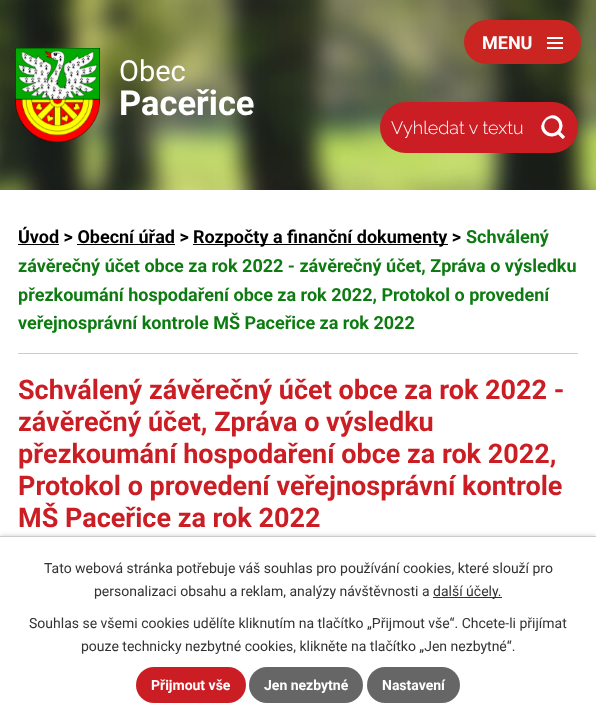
<?xml version="1.0" encoding="UTF-8"?>
<svg xmlns="http://www.w3.org/2000/svg" width="596" height="713">
    <defs>
        <filter id="blur1" x="-50%" y="-200%" width="200%" height="500%"><feGaussianBlur stdDeviation="2.5"/></filter>
    </defs>
    <rect width="100%" height="100%" fill="#FFFFFF"/>
    <image x="0" y="0" width="596" height="190" href="img_02.png"/>
    <rect x="464" y="20" width="117" height="44" rx="22" fill="#CB2521"/>
    <text x="482" y="49" font-family="Roboto" font-size="18" font-weight="700" fill="#FFFFFF">MENU</text>
    <image x="547" y="37" width="16" height="12" href="img_01.png"/>
    <image x="15" y="48" width="85" height="94" href="img_03.png"/>
    <text x="119" y="81" font-family="Roboto" font-size="29" fill="#FFFFFF">Obec</text>
    <text x="119" y="115" font-family="Roboto" font-size="34.5" font-weight="700" fill="#FFFFFF">Paceřice</text>
    <rect x="380" y="102" width="198" height="51" rx="25.5" fill="#CB1E24"/>
    <text x="391" y="134" font-family="Raleway" font-size="18" font-weight="300" fill="#FFFFFF">Vyhledat v textu</text>
    <image x="541" y="115" width="24" height="24" href="img_04.png"/>
    <text x="18" y="243" font-family="Roboto" font-size="18" font-weight="700" fill="#000000">Úvod &gt; Obecní úřad &gt;</text>
    <rect x="18" y="244" width="41" height="1" fill="#000000"/>
    <rect x="193" y="244" width="255" height="1" fill="#000000"/>
    <text x="193" y="243" font-family="Roboto" font-size="18" font-weight="700" fill="#000000">Rozpočty a finanční dokumenty &gt;</text>
    <text x="466" y="243" font-family="Roboto" font-size="18" font-weight="700" fill="#0D7B11">Schválený</text>
    <rect x="77" y="244" width="98" height="1" fill="#000000"/>
    <text font-family="Roboto" font-size="18" font-weight="700" fill="#0D7B11">
        <tspan x="18" y="272">závěrečný účet obce za rok 2022 - závěrečný účet, Zpráva o výsledku</tspan>
        <tspan x="18" y="301">přezkoumání hospodaření obce za rok 2022, Protokol o provedení</tspan>
        <tspan x="18" y="329">veřejnosprávní kontrole MŠ Paceřice za rok 2022</tspan>
    </text>
    <rect x="18" y="353" width="560" height="1" fill="#CCCCCC"/>
    <text font-family="Roboto" font-size="27" font-weight="700" fill="#CB1E24">
        <tspan x="18" y="399">Schválený závěrečný účet obce za rok 2022 -</tspan>
        <tspan x="18" y="431">závěrečný účet, Zpráva o výsledku</tspan>
        <tspan x="18" y="463">přezkoumání hospodaření obce za rok 2022,</tspan>
        <tspan x="18" y="495">Protokol o provedení veřejnosprávní kontrole</tspan>
        <tspan x="18" y="527">MŠ Paceřice za rok 2022</tspan>
    </text>
    <rect x="0" y="536" width="596" height="177" fill="#000000" fill-opacity="0.2" filter="url(#blur1)"/>
    <rect x="0" y="537" width="596" height="176" fill="#FFFFFF"/>
    <rect x="0" y="536" width="596" height="1" fill="#CCCCCC"/>
    <text x="44" y="573" font-family="Roboto" font-size="14" fill="#333333">Tato webová stránka potřebuje váš souhlas pro používání cookies, které slouží pro</text>
    <text x="94" y="596" font-family="Roboto" font-size="14" fill="#333333">personalizaci obsahu a reklam, analýzy návštěvnosti a</text>
    <rect x="433" y="597" width="69" height="1" fill="#333333"/>
    <text x="433" y="596" font-family="Roboto" font-size="14" fill="#333333">další účely.</text>
    <text x="29" y="628" font-family="Roboto" font-size="14" fill="#333333">Souhlas se všemi cookies udělíte kliknutím na tlačítko „Přijmout vše“. Chcete-li přijímat</text>
    <text x="81" y="651" font-family="Roboto" font-size="14" fill="#333333">pouze technicky nezbytné cookies, klikněte na tlačítko „Jen nezbytné“.</text>
    <rect x="136" y="667" width="110" height="36" rx="18" fill="#CB1E24"/>
    <text x="151" y="690" font-family="Roboto" font-size="14" font-weight="700" fill="#FFFFFF">Přijmout vše</text>
    <rect x="249" y="667" width="114" height="36" rx="18" fill="#666666"/>
    <text x="264" y="690" font-family="Roboto" font-size="14" font-weight="700" fill="#FFFFFF">Jen nezbytné</text>
    <rect x="367" y="667" width="93" height="36" rx="18" fill="#666666"/>
    <text x="382" y="690" font-family="Roboto" font-size="14" font-weight="700" fill="#FFFFFF">Nastavení</text>
</svg>
